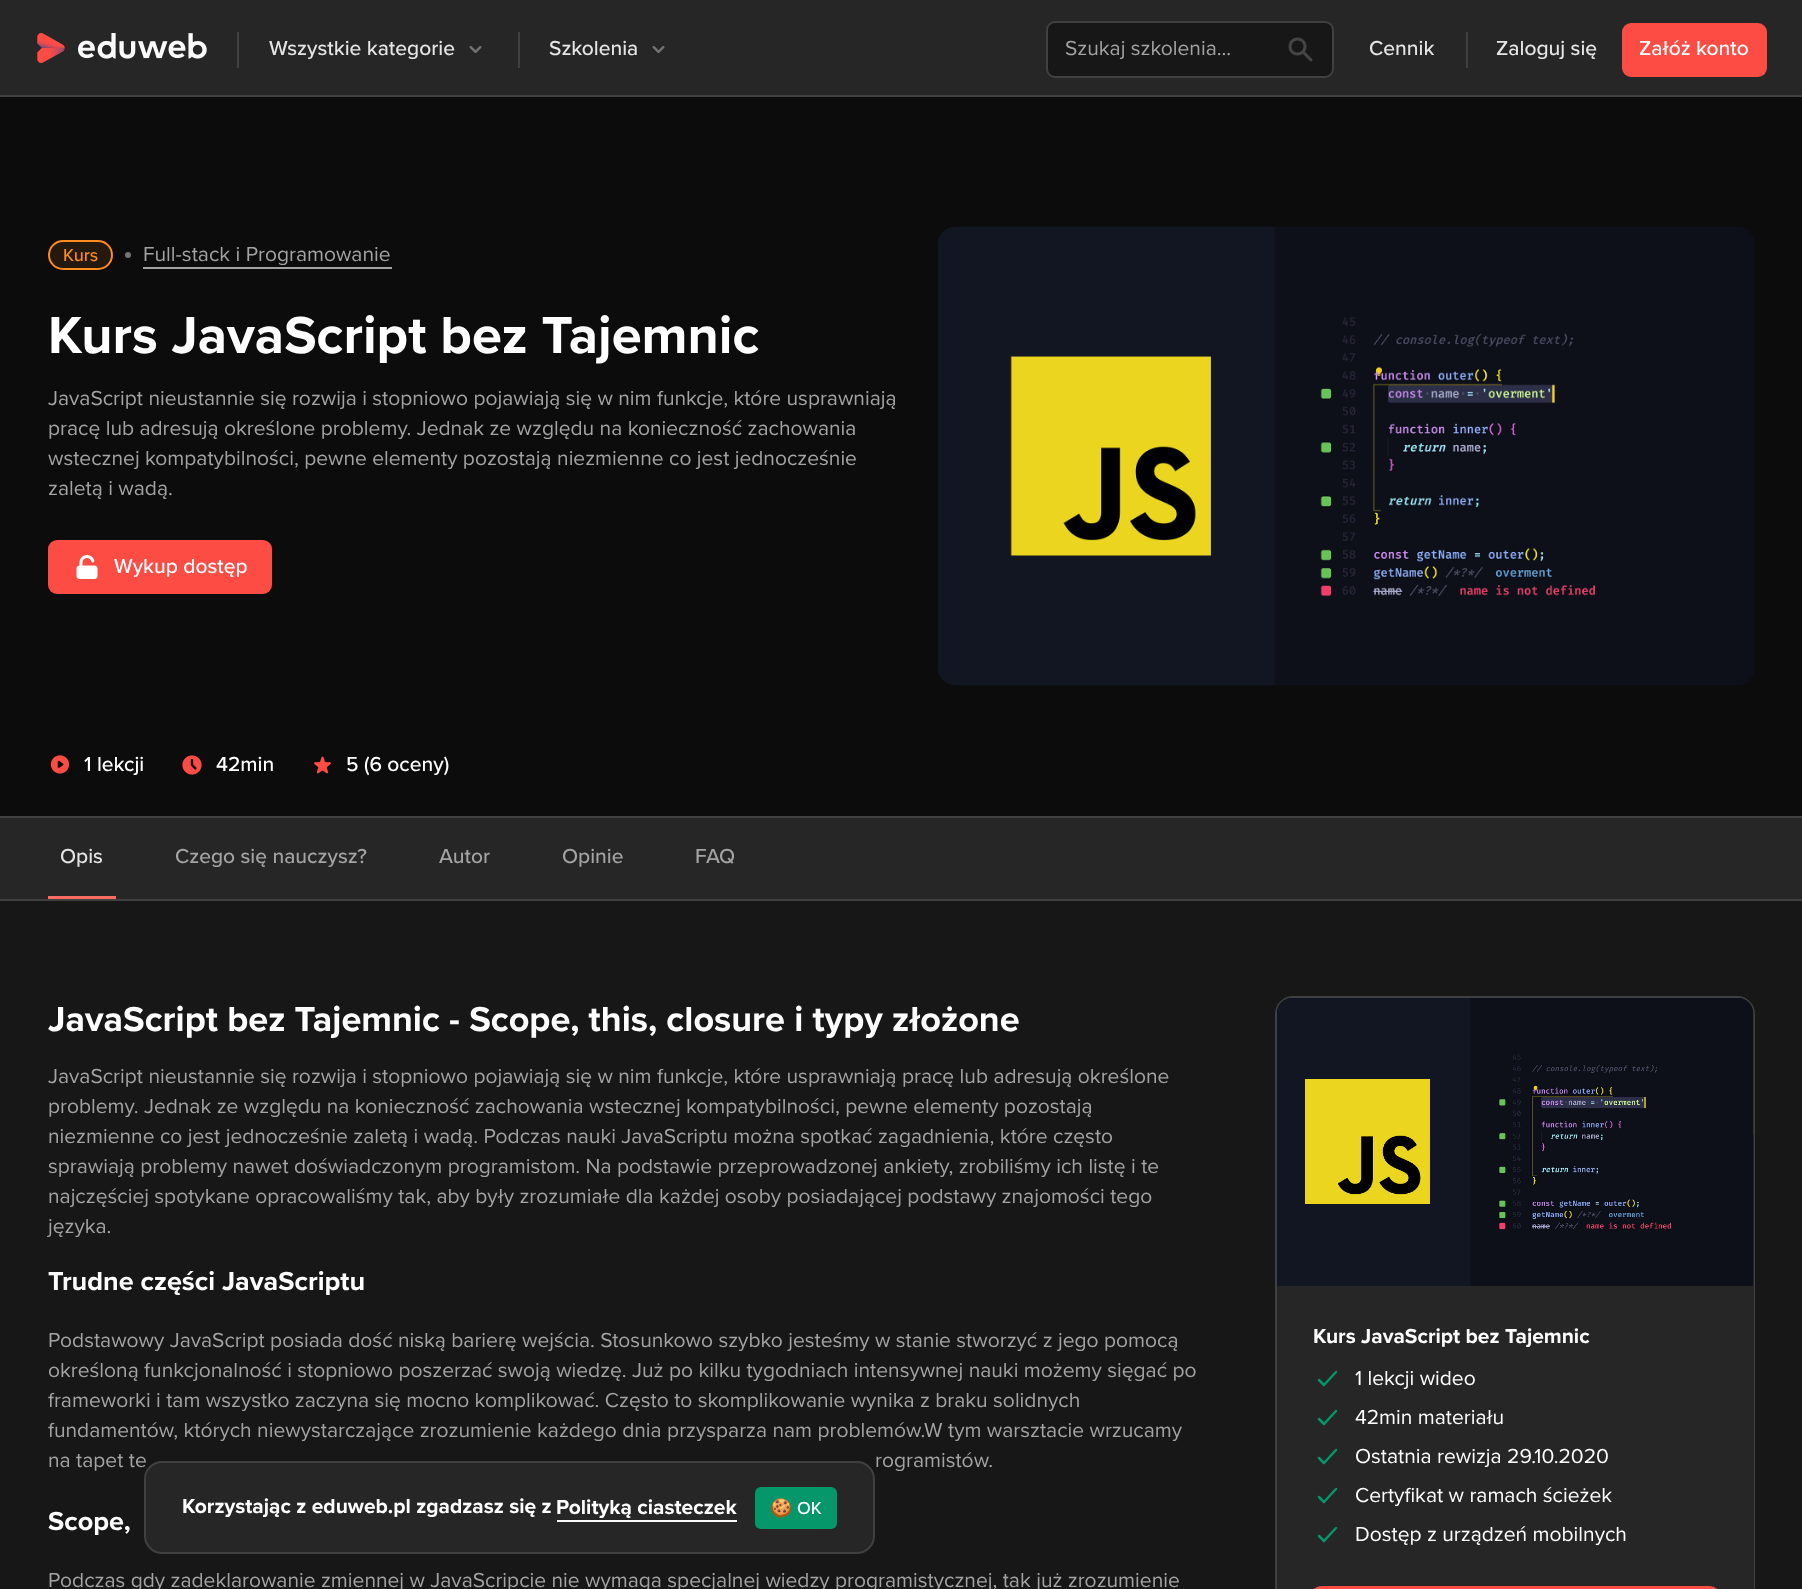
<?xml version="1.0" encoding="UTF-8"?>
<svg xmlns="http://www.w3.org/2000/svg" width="1802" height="1589">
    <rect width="100%" height="100%" fill="#171717"/>
    <rect x="0" y="0" width="1802" height="95" fill="#262626"/>
    <rect x="0" y="95" width="1802" height="2" fill="#404040"/>
    <image x="37" y="33" width="28" height="30" href="img_01.png"/>
    <image x="78" y="33" width="129" height="26" href="img_02.png"/>
    <rect x="237" y="32" width="2" height="36" fill="#404040"/>
    <text x="269" y="55" font-family="Proxima Nova" font-size="21" font-weight="500" fill="#E5E5E5">Wszystkie kategorie</text>
    <image x="469" y="46" width="13" height="7" href="img_03.png"/>
    <rect x="518" y="32" width="2" height="36" fill="#404040"/>
    <text x="549" y="55" font-family="Proxima Nova" font-size="21" font-weight="500" fill="#E5E5E5">Szkolenia</text>
    <image x="652" y="46" width="13" height="7" href="img_03.png"/>
    <rect x="1047" y="22" width="286" height="55" rx="8" fill="#171717" stroke="#404040" stroke-width="2"/>
    <text x="1065" y="55" font-family="Proxima Nova" font-size="21" fill="#A3A3A3">Szukaj szkolenia...</text>
    <image x="1288" y="37" width="25" height="25" href="img_04.png"/>
    <text x="1369" y="55" font-family="Proxima Nova" font-size="21" font-weight="500" fill="#E5E5E5">Cennik</text>
    <rect x="1466" y="32" width="2" height="36" fill="#404040"/>
    <text x="1496" y="55" font-family="Proxima Nova" font-size="21" font-weight="500" fill="#E5E5E5">Zaloguj się</text>
    <rect x="1622" y="23" width="145" height="54" rx="9" fill="#FC4C44"/>
    <text x="1639" y="55" font-family="Proxima Nova" font-size="21" font-weight="500" fill="#FFFFFF">Załóż konto</text>
    <rect x="0" y="97" width="1802" height="719" fill="#0C0C0C"/>
    <rect x="49" y="241" width="63" height="28" rx="14" fill="#24190E" stroke="#FF8A20" stroke-width="2"/>
    <text x="63" y="261" font-family="Proxima Nova" font-size="18" font-weight="500" fill="#FF8A20">Kurs</text>
    <circle cx="128" cy="255" r="3" fill="#737373"/>
    <text x="143" y="261" font-family="Proxima Nova" font-size="21" fill="#A3A3A3">Full-stack i Programowanie</text>
    <rect x="143" y="267" width="249" height="2" fill="#A3A3A3"/>
    <text x="48" y="353" font-family="Proxima Nova" font-size="54" font-weight="700" fill="#FFFFFF">Kurs JavaScript bez Tajemnic</text>
    <text font-family="Proxima Nova" font-size="21" fill="#A3A3A3">
        <tspan x="48" y="405">JavaScript nieustannie się rozwija i stopniowo pojawiają się w nim funkcje, które usprawniają</tspan>
        <tspan x="48" y="435">pracę lub adresują określone problemy. Jednak ze względu na konieczność zachowania</tspan>
        <tspan x="48" y="465">wstecznej kompatybilności, pewne elementy pozostają niezmienne co jest jednocześnie</tspan>
        <tspan x="48" y="495">zaletą i wadą.</tspan>
    </text>
    <rect x="48" y="540" width="224" height="54" rx="9" fill="#FC4C44"/>
    <image x="76" y="555" width="22" height="24" href="img_05.png"/>
    <text x="114" y="573" font-family="Proxima Nova" font-size="21" font-weight="500" fill="#FFFFFF">Wykup dostęp</text>
    <image x="50" y="755" width="20" height="19" href="img_06.png"/>
    <text x="84" y="771" font-family="Proxima Nova" font-size="21" font-weight="500" fill="#FFFFFF">1 lekcji</text>
    <image x="182" y="755" width="20" height="20" href="img_07.png"/>
    <text x="216" y="771" font-family="Proxima Nova" font-size="21" font-weight="500" fill="#FFFFFF">42min</text>
    <image x="314" y="756" width="17" height="18" href="img_08.png"/>
    <text x="346" y="771" font-family="Proxima Nova" font-size="21" font-weight="500" fill="#FFFFFF">5 (6 oceny)</text>
    <image x="938" y="226" width="817" height="460" href="img_09.png"/>
    <rect x="0" y="818" width="1802" height="81" fill="#262626"/>
    <rect x="0" y="816" width="1802" height="2" fill="#404040"/>
    <rect x="0" y="899" width="1802" height="2" fill="#404040"/>
    <rect x="48" y="896" width="68" height="3" fill="#FF6A63"/>
    <text x="60" y="863" font-family="Proxima Nova" font-size="21" font-weight="500" fill="#E5E5E5">Opis</text>
    <text x="175" y="863" font-family="Proxima Nova" font-size="21" font-weight="500" fill="#A3A3A3">Czego się nauczysz?</text>
    <text x="439" y="863" font-family="Proxima Nova" font-size="21" font-weight="500" fill="#A3A3A3">Autor</text>
    <text x="562" y="863" font-family="Proxima Nova" font-size="21" font-weight="500" fill="#A3A3A3">Opinie</text>
    <text x="695" y="863" font-family="Proxima Nova" font-size="21" font-weight="500" fill="#A3A3A3">FAQ</text>
    <text x="48" y="1031" font-family="Proxima Nova" font-size="36" font-weight="700" fill="#FFFFFF">JavaScript bez Tajemnic - Scope, this, closure i typy złożone</text>
    <text font-family="Proxima Nova" font-size="21" fill="#A3A3A3">
        <tspan x="48" y="1083">JavaScript nieustannie się rozwija i stopniowo pojawiają się w nim funkcje, które usprawniają pracę lub adresują określone</tspan>
        <tspan x="48" y="1113">problemy. Jednak ze względu na konieczność zachowania wstecznej kompatybilności, pewne elementy pozostają</tspan>
        <tspan x="48" y="1143">niezmienne co jest jednocześnie zaletą i wadą. Podczas nauki JavaScriptu można spotkać zagadnienia, które często</tspan>
        <tspan x="48" y="1173">sprawiają problemy nawet doświadczonym programistom. Na podstawie przeprowadzonej ankiety, zrobiliśmy ich listę i te</tspan>
        <tspan x="48" y="1203">najczęściej spotykane opracowaliśmy tak, aby były zrozumiałe dla każdej osoby posiadającej podstawy znajomości tego</tspan>
        <tspan x="48" y="1233">języka.</tspan>
    </text>
    <text x="48" y="1290" font-family="Proxima Nova" font-size="27" font-weight="700" fill="#FFFFFF">Trudne części JavaScriptu</text>
    <text font-family="Proxima Nova" font-size="21" fill="#A3A3A3">
        <tspan x="48" y="1347">Podstawowy JavaScript posiada dość niską barierę wejścia. Stosunkowo szybko jesteśmy w stanie stworzyć z jego pomocą</tspan>
        <tspan x="48" y="1377">określoną funkcjonalność i stopniowo poszerzać swoją wiedzę. Już po kilku tygodniach intensywnej nauki możemy sięgać po</tspan>
        <tspan x="48" y="1407">frameworki i tam wszystko zaczyna się mocno komplikować. Często to skomplikowanie wynika z braku solidnych</tspan>
        <tspan x="48" y="1437">fundamentów, których niewystarczające zrozumienie każdego dnia przysparza nam problemów.W tym warsztacie wrzucamy</tspan>
        <tspan x="48" y="1467">na tapet te</tspan>
    </text>
    <text x="875" y="1467" font-family="Proxima Nova" font-size="21" fill="#A3A3A3">rogramistów.</text>
    <text x="48" y="1530" font-family="Proxima Nova" font-size="27" font-weight="700" fill="#FFFFFF">Scope,</text>
    <text x="48" y="1587" font-family="Proxima Nova" font-size="21" fill="#A3A3A3">Podczas gdy zadeklarowanie zmiennej w JavaScripcie nie wymaga specjalnej wiedzy programistycznej, tak już zrozumienie</text>
    <rect x="1276" y="997" width="478" height="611" rx="17" fill="none" stroke="#404040" stroke-width="2"/>
    <image x="1277" y="998" width="477" height="288" href="img_10.png"/>
    <rect x="1277" y="1286" width="477" height="303" fill="#262626"/>
    <text x="1313" y="1343" font-family="Proxima Nova" font-size="21" font-weight="700" fill="#FFFFFF">Kurs JavaScript bez Tajemnic</text>
    <path d="M 1319 1380 L 1324 1385 L 1336 1372 M 1319 1419 L 1324 1424 L 1336 1411" fill="none" stroke="#059669" stroke-width="2.5" stroke-linecap="round" stroke-linejoin="round"/>
    <text font-family="Proxima Nova" font-size="21" fill="#FFFFFF">
        <tspan x="1355" y="1385">1 lekcji wideo</tspan>
        <tspan x="1355" y="1424">42min materiału</tspan>
    </text>
    <path d="M 1319 1458 L 1324 1463 L 1336 1450 M 1319 1497 L 1324 1502 L 1336 1489" fill="none" stroke="#059669" stroke-width="2.5" stroke-linecap="round" stroke-linejoin="round"/>
    <text font-family="Proxima Nova" font-size="21" fill="#FFFFFF">
        <tspan x="1355" y="1463">Ostatnia rewizja 29.10.2020</tspan>
        <tspan x="1355" y="1502">Certyfikat w ramach ścieżek</tspan>
    </text>
    <path d="M 1319 1536 L 1324 1541 L 1336 1528" fill="none" stroke="#059669" stroke-width="2.5" stroke-linecap="round" stroke-linejoin="round"/>
    <text x="1355" y="1541" font-family="Proxima Nova" font-size="21" fill="#FFFFFF">Dostęp z urządzeń mobilnych</text>
    <rect x="1313" y="1586" width="405" height="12" rx="9" fill="#FC4C44"/>
    <rect x="145" y="1462" width="729" height="91" rx="17" fill="#262626" stroke="#404040" stroke-width="2"/>
    <text x="182" y="1513" font-family="Proxima Nova" font-size="21" font-weight="700" fill="#FFFFFF">Korzystając z eduweb.pl zgadzasz się z</text>
    <text x="556" y="1514" font-family="Proxima Nova" font-size="21" font-weight="700" fill="#FFFFFF">Polityką ciasteczek</text>
    <rect x="557" y="1520" width="180" height="2" fill="#FAFAFA"/>
    <rect x="755" y="1487" width="82" height="42" rx="6" fill="#059669"/>
    <text x="770" y="1514" font-family="Noto Color Emoji" font-size="18" fill="#FFFFFF">🍪</text>
    <text x="797" y="1514" font-family="Proxima Nova" font-size="18" font-weight="500" fill="#FFFFFF">OK</text>
</svg>
